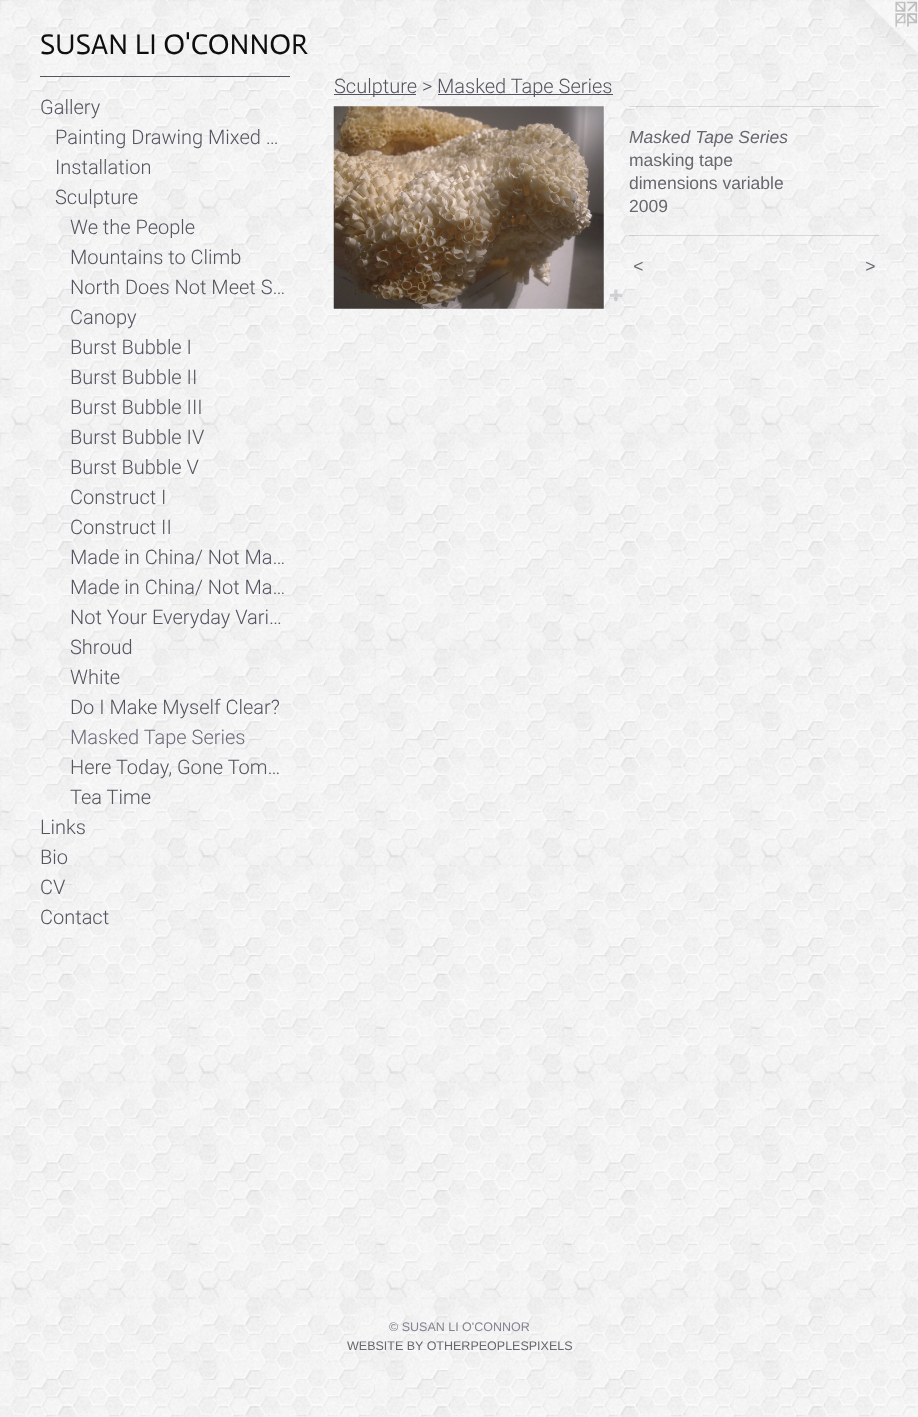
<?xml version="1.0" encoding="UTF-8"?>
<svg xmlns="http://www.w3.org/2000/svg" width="918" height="1417">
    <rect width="100%" height="100%" fill="#FFFFFF"/>
    <image x="0" y="0" width="918" height="1417" href="img_01.png"/>
    <text x="40" y="54" font-family="Actor" font-size="28.75" fill="#0E0E0F">SUSAN LI O'CONNOR</text>
    <image x="849" y="0" width="69" height="69" href="img_02.png"/>
    <rect x="40" y="76" width="250" height="1" fill="#55535F"/>
    <text x="40" y="114" font-family="Roboto" font-size="20" font-weight="300" fill="#55535F">Gallery</text>
    <text font-family="Roboto" font-size="20" font-weight="300" fill="#55535F">
        <tspan x="55" y="144">Painting Drawing Mixed …</tspan>
        <tspan x="55" y="174">Installation</tspan>
        <tspan x="55" y="204">Sculpture</tspan>
    </text>
    <text font-family="Roboto" font-size="20" font-weight="300" fill="#55535F">
        <tspan x="70" y="234">We the People</tspan>
        <tspan x="70" y="264">Mountains to Climb</tspan>
        <tspan x="70" y="294">North Does Not Meet S…</tspan>
        <tspan x="70" y="324">Canopy</tspan>
        <tspan x="70" y="354">Burst Bubble I</tspan>
        <tspan x="70" y="384">Burst Bubble II</tspan>
        <tspan x="70" y="414">Burst Bubble III</tspan>
        <tspan x="70" y="444">Burst Bubble IV</tspan>
        <tspan x="70" y="474">Burst Bubble V</tspan>
        <tspan x="70" y="504">Construct I</tspan>
        <tspan x="70" y="534">Construct II</tspan>
        <tspan x="70" y="564">Made in China/ Not Ma…</tspan>
        <tspan x="70" y="594">Made in China/ Not Ma…</tspan>
        <tspan x="70" y="624">Not Your Everyday Vari…</tspan>
        <tspan x="70" y="654">Shroud</tspan>
        <tspan x="70" y="684">White</tspan>
        <tspan x="70" y="714">Do I Make Myself Clear?</tspan>
    </text>
    <text x="70" y="744" font-family="Roboto" font-size="20" font-weight="300" fill="#6D6B7A">Masked Tape Series</text>
    <text font-family="Roboto" font-size="20" font-weight="300" fill="#55535F">
        <tspan x="70" y="774">Here Today, Gone Tom…</tspan>
        <tspan x="70" y="804">Tea Time</tspan>
    </text>
    <text font-family="Roboto" font-size="20" font-weight="300" fill="#55535F">
        <tspan x="40" y="834">Links</tspan>
        <tspan x="40" y="864">Bio</tspan>
        <tspan x="40" y="894">CV</tspan>
        <tspan x="40" y="924">Contact</tspan>
    </text>
    <rect x="334" y="94" width="82" height="1" fill="#55535F"/>
    <text x="334" y="93" font-family="Roboto" font-size="20" font-weight="300" fill="#55535F">Sculpture &gt;</text>
    <rect x="438" y="94" width="175" height="1" fill="#55535F"/>
    <text x="437" y="93" font-family="Roboto" font-size="20" font-weight="300" fill="#55535F">Masked Tape Series</text>
    <image x="333" y="106" width="271" height="203" href="img_03.png"/>
    <image x="610" y="289" width="12" height="13" href="img_04.png"/>
    <rect x="629" y="106" width="250" height="1" fill="#65636E" fill-opacity="0.2"/>
    <text x="629" y="143" font-family="Liberation Sans" font-size="17.5" font-style="italic" fill="#68676F">Masked Tape Series</text>
    <text font-family="Liberation Sans" font-size="17.5" fill="#68676F">
        <tspan x="629" y="166">masking tape</tspan>
        <tspan x="629" y="189">dimensions variable</tspan>
        <tspan x="629" y="212">2009</tspan>
    </text>
    <rect x="629" y="235" width="250" height="1" fill="#65636E" fill-opacity="0.2"/>
    <text x="633" y="272" font-family="Liberation Sans" font-size="17.5" font-style="italic" letter-spacing="1" fill="#68676F">&lt;</text>
    <text x="865" y="272" font-family="Liberation Sans" font-size="17.5" font-style="italic" letter-spacing="1" fill="#68676F">&gt;</text>
    <text x="389" y="1331" font-family="Liberation Sans" font-size="12.5" fill="#848391">© SUSAN LI O'CONNOR</text>
    <text x="347" y="1350" font-family="Liberation Sans" font-size="12.5" fill="#68676F">WEBSITE BY OTHERPEOPLESPIXELS</text>
</svg>
